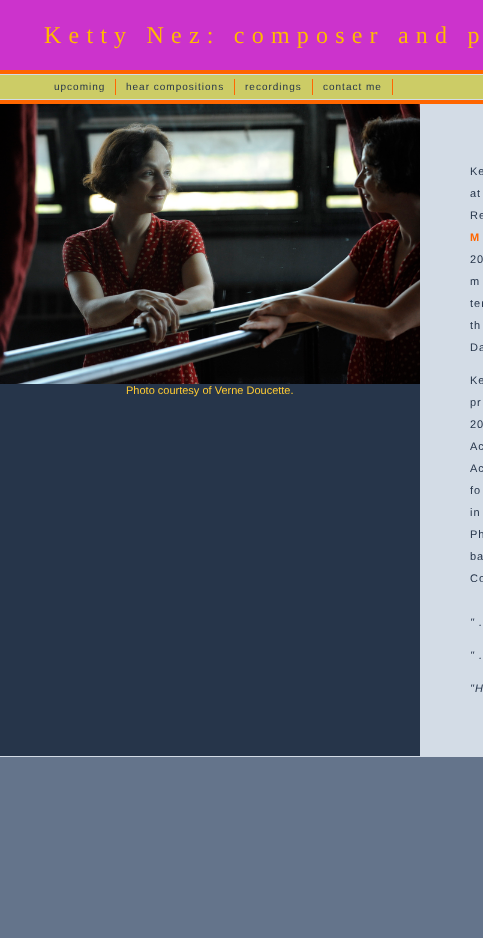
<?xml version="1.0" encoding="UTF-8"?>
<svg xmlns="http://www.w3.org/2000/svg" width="483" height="938">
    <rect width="100%" height="100%" fill="#64748B"/>
    <rect x="0" y="0" width="483" height="70" fill="#CC33CC"/>
    <text x="44" y="43" font-family="Liberation Serif" font-size="24" letter-spacing="7.2" fill="#FFBA00">Ketty Nez: composer and p</text>
    <rect x="0" y="70" width="483" height="4" fill="#FF6600"/>
    <rect x="0" y="74" width="483" height="1" fill="#D3DCE6"/>
    <rect x="0" y="75" width="483" height="24" fill="#CCCC66"/>
    <rect x="115" y="79" width="1" height="16" fill="#FF6600"/>
    <text x="54" y="90" font-family="Liberation Sans" font-size="10" letter-spacing="1" fill="#26354A">upcoming</text>
    <rect x="234" y="79" width="1" height="16" fill="#FF6600"/>
    <text x="126" y="90" font-family="Liberation Sans" font-size="10" letter-spacing="1" fill="#26354A">hear compositions</text>
    <rect x="312" y="79" width="1" height="16" fill="#FF6600"/>
    <text x="245" y="90" font-family="Liberation Sans" font-size="10" letter-spacing="1" fill="#26354A">recordings</text>
    <rect x="392" y="79" width="1" height="16" fill="#FF6600"/>
    <text x="323" y="90" font-family="Liberation Sans" font-size="10" letter-spacing="1" fill="#26354A">contact me</text>
    <rect x="0" y="99" width="483" height="1" fill="#D3DCE6"/>
    <rect x="0" y="100" width="483" height="4" fill="#FF6600"/>
    <rect x="420" y="104" width="63" height="652" fill="#D3DCE6"/>
    <rect x="0" y="384" width="420" height="372" fill="#26354A"/>
    <image x="0" y="104" width="420" height="280" href="img_01.png"/>
    <text x="126" y="394" font-family="Liberation Sans" font-size="11" fill="#FFCC33">Photo courtesy of Verne Doucette.</text>
    <text x="470" y="175" font-family="Liberation Sans" font-size="11" letter-spacing="1" fill="#26354A">Ke</text>
    <text x="470" y="197" font-family="Liberation Sans" font-size="11" letter-spacing="1" fill="#26354A">at</text>
    <text x="470" y="219" font-family="Liberation Sans" font-size="11" letter-spacing="1" fill="#26354A">Re</text>
    <text x="470" y="241" font-family="Liberation Sans" font-size="11" font-weight="700" letter-spacing="1" fill="#FF6600">M</text>
    <text x="470" y="263" font-family="Liberation Sans" font-size="11" letter-spacing="1" fill="#26354A">20</text>
    <text x="470" y="285" font-family="Liberation Sans" font-size="11" letter-spacing="1" fill="#26354A">m</text>
    <text x="470" y="307" font-family="Liberation Sans" font-size="11" letter-spacing="1" fill="#26354A">ter</text>
    <text x="470" y="329" font-family="Liberation Sans" font-size="11" letter-spacing="1" fill="#26354A">th</text>
    <text x="470" y="351" font-family="Liberation Sans" font-size="11" letter-spacing="1" fill="#26354A">Da</text>
    <text x="470" y="384" font-family="Liberation Sans" font-size="11" letter-spacing="1" fill="#26354A">Ke</text>
    <text x="470" y="406" font-family="Liberation Sans" font-size="11" letter-spacing="1" fill="#26354A">pr</text>
    <text x="470" y="428" font-family="Liberation Sans" font-size="11" letter-spacing="1" fill="#26354A">20</text>
    <text x="470" y="450" font-family="Liberation Sans" font-size="11" letter-spacing="1" fill="#26354A">Ac</text>
    <text x="470" y="472" font-family="Liberation Sans" font-size="11" letter-spacing="1" fill="#26354A">Ac</text>
    <text x="470" y="494" font-family="Liberation Sans" font-size="11" letter-spacing="1" fill="#26354A">fo</text>
    <text x="470" y="516" font-family="Liberation Sans" font-size="11" letter-spacing="1" fill="#26354A">in</text>
    <text x="470" y="538" font-family="Liberation Sans" font-size="11" letter-spacing="1" fill="#26354A">Ph</text>
    <text x="470" y="560" font-family="Liberation Sans" font-size="11" letter-spacing="1" fill="#26354A">ba</text>
    <text x="470" y="582" font-family="Liberation Sans" font-size="11" letter-spacing="1" fill="#26354A">Co</text>
    <text x="470" y="626" font-family="Liberation Sans" font-size="11" font-style="italic" letter-spacing="1" fill="#26354A">" .</text>
    <text x="470" y="659" font-family="Liberation Sans" font-size="11" font-style="italic" letter-spacing="1" fill="#26354A">" .</text>
    <text x="470" y="692" font-family="Liberation Sans" font-size="11" font-style="italic" letter-spacing="1" fill="#26354A">"H</text>
    <rect x="0" y="756" width="483" height="1" fill="#D3DCE6"/>
</svg>
